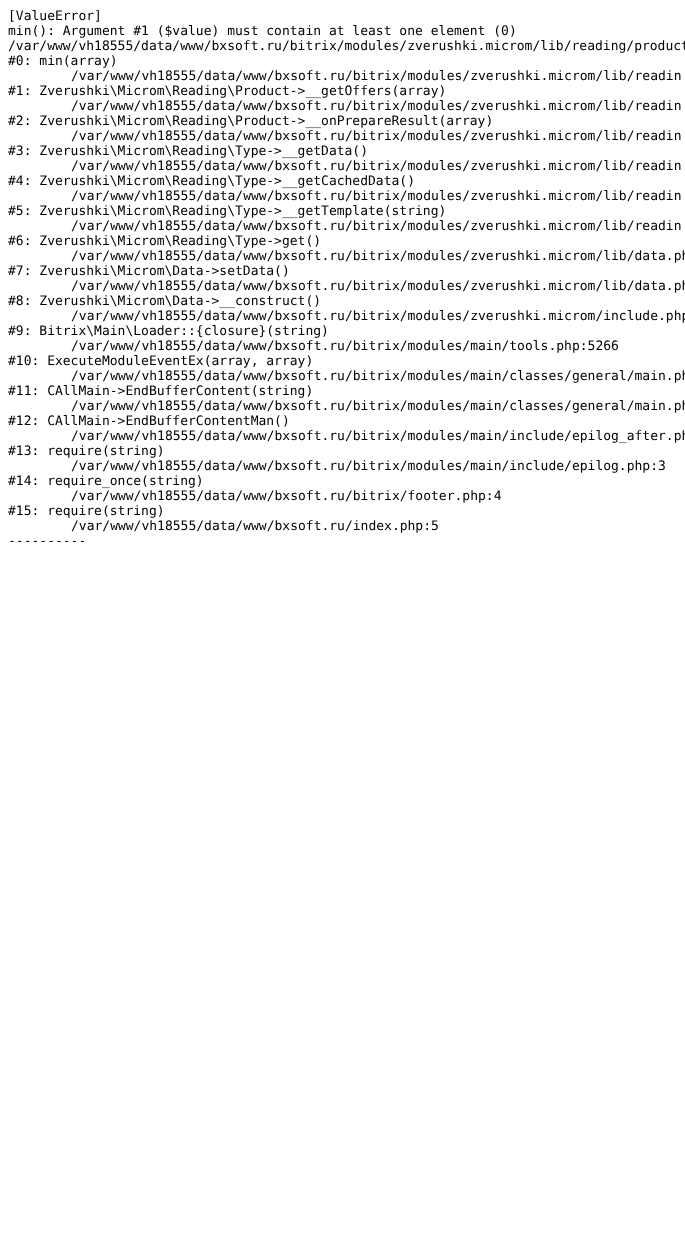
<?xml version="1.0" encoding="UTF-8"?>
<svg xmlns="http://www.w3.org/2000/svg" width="685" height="1248">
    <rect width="100%" height="100%" fill="#FFFFFF"/>
    <text font-family="DejaVu Sans Mono" font-size="13" fill="#000000">
        <tspan x="8" y="20">[ValueError]</tspan>
        <tspan x="8" y="35">min(): Argument #1 ($value) must contain at least one element (0)</tspan>
        <tspan x="8" y="50">/var/www/vh18555/data/www/bxsoft.ru/bitrix/modules/zverushki.microm/lib/reading/product</tspan>
        <tspan x="8" y="65">#0: min(array)</tspan>
    </text>
    <text x="71" y="80" font-family="DejaVu Sans Mono" font-size="13" fill="#000000">/var/www/vh18555/data/www/bxsoft.ru/bitrix/modules/zverushki.microm/lib/readin</text>
    <text x="8" y="95" font-family="DejaVu Sans Mono" font-size="13" fill="#000000">#1: Zverushki\Microm\Reading\Product-&gt;__getOffers(array)</text>
    <text x="71" y="110" font-family="DejaVu Sans Mono" font-size="13" fill="#000000">/var/www/vh18555/data/www/bxsoft.ru/bitrix/modules/zverushki.microm/lib/readin</text>
    <text x="8" y="125" font-family="DejaVu Sans Mono" font-size="13" fill="#000000">#2: Zverushki\Microm\Reading\Product-&gt;__onPrepareResult(array)</text>
    <text x="71" y="140" font-family="DejaVu Sans Mono" font-size="13" fill="#000000">/var/www/vh18555/data/www/bxsoft.ru/bitrix/modules/zverushki.microm/lib/readin</text>
    <text x="8" y="155" font-family="DejaVu Sans Mono" font-size="13" fill="#000000">#3: Zverushki\Microm\Reading\Type-&gt;__getData()</text>
    <text x="71" y="170" font-family="DejaVu Sans Mono" font-size="13" fill="#000000">/var/www/vh18555/data/www/bxsoft.ru/bitrix/modules/zverushki.microm/lib/readin</text>
    <text x="8" y="185" font-family="DejaVu Sans Mono" font-size="13" fill="#000000">#4: Zverushki\Microm\Reading\Type-&gt;__getCachedData()</text>
    <text x="71" y="200" font-family="DejaVu Sans Mono" font-size="13" fill="#000000">/var/www/vh18555/data/www/bxsoft.ru/bitrix/modules/zverushki.microm/lib/readin</text>
    <text x="8" y="215" font-family="DejaVu Sans Mono" font-size="13" fill="#000000">#5: Zverushki\Microm\Reading\Type-&gt;__getTemplate(string)</text>
    <text x="71" y="230" font-family="DejaVu Sans Mono" font-size="13" fill="#000000">/var/www/vh18555/data/www/bxsoft.ru/bitrix/modules/zverushki.microm/lib/readin</text>
    <text x="8" y="245" font-family="DejaVu Sans Mono" font-size="13" fill="#000000">#6: Zverushki\Microm\Reading\Type-&gt;get()</text>
    <text x="71" y="260" font-family="DejaVu Sans Mono" font-size="13" fill="#000000">/var/www/vh18555/data/www/bxsoft.ru/bitrix/modules/zverushki.microm/lib/data.ph</text>
    <text x="8" y="275" font-family="DejaVu Sans Mono" font-size="13" fill="#000000">#7: Zverushki\Microm\Data-&gt;setData()</text>
    <text x="71" y="290" font-family="DejaVu Sans Mono" font-size="13" fill="#000000">/var/www/vh18555/data/www/bxsoft.ru/bitrix/modules/zverushki.microm/lib/data.ph</text>
    <text x="8" y="305" font-family="DejaVu Sans Mono" font-size="13" fill="#000000">#8: Zverushki\Microm\Data-&gt;__construct()</text>
    <text x="71" y="320" font-family="DejaVu Sans Mono" font-size="13" fill="#000000">/var/www/vh18555/data/www/bxsoft.ru/bitrix/modules/zverushki.microm/include.php</text>
    <text x="8" y="335" font-family="DejaVu Sans Mono" font-size="13" fill="#000000">#9: Bitrix\Main\Loader::{closure}(string)</text>
    <text x="71" y="350" font-family="DejaVu Sans Mono" font-size="13" fill="#000000">/var/www/vh18555/data/www/bxsoft.ru/bitrix/modules/main/tools.php:5266</text>
    <text x="8" y="365" font-family="DejaVu Sans Mono" font-size="13" fill="#000000">#10: ExecuteModuleEventEx(array, array)</text>
    <text x="71" y="380" font-family="DejaVu Sans Mono" font-size="13" fill="#000000">/var/www/vh18555/data/www/bxsoft.ru/bitrix/modules/main/classes/general/main.ph</text>
    <text x="8" y="395" font-family="DejaVu Sans Mono" font-size="13" fill="#000000">#11: CAllMain-&gt;EndBufferContent(string)</text>
    <text x="71" y="410" font-family="DejaVu Sans Mono" font-size="13" fill="#000000">/var/www/vh18555/data/www/bxsoft.ru/bitrix/modules/main/classes/general/main.ph</text>
    <text x="8" y="425" font-family="DejaVu Sans Mono" font-size="13" fill="#000000">#12: CAllMain-&gt;EndBufferContentMan()</text>
    <text x="71" y="440" font-family="DejaVu Sans Mono" font-size="13" fill="#000000">/var/www/vh18555/data/www/bxsoft.ru/bitrix/modules/main/include/epilog_after.ph</text>
    <text x="8" y="455" font-family="DejaVu Sans Mono" font-size="13" fill="#000000">#13: require(string)</text>
    <text x="71" y="470" font-family="DejaVu Sans Mono" font-size="13" fill="#000000">/var/www/vh18555/data/www/bxsoft.ru/bitrix/modules/main/include/epilog.php:3</text>
    <text x="8" y="485" font-family="DejaVu Sans Mono" font-size="13" fill="#000000">#14: require_once(string)</text>
    <text x="71" y="500" font-family="DejaVu Sans Mono" font-size="13" fill="#000000">/var/www/vh18555/data/www/bxsoft.ru/bitrix/footer.php:4</text>
    <text x="8" y="515" font-family="DejaVu Sans Mono" font-size="13" fill="#000000">#15: require(string)</text>
    <text x="71" y="530" font-family="DejaVu Sans Mono" font-size="13" fill="#000000">/var/www/vh18555/data/www/bxsoft.ru/index.php:5</text>
    <text x="8" y="545" font-family="DejaVu Sans Mono" font-size="13" fill="#000000">----------</text>
</svg>
